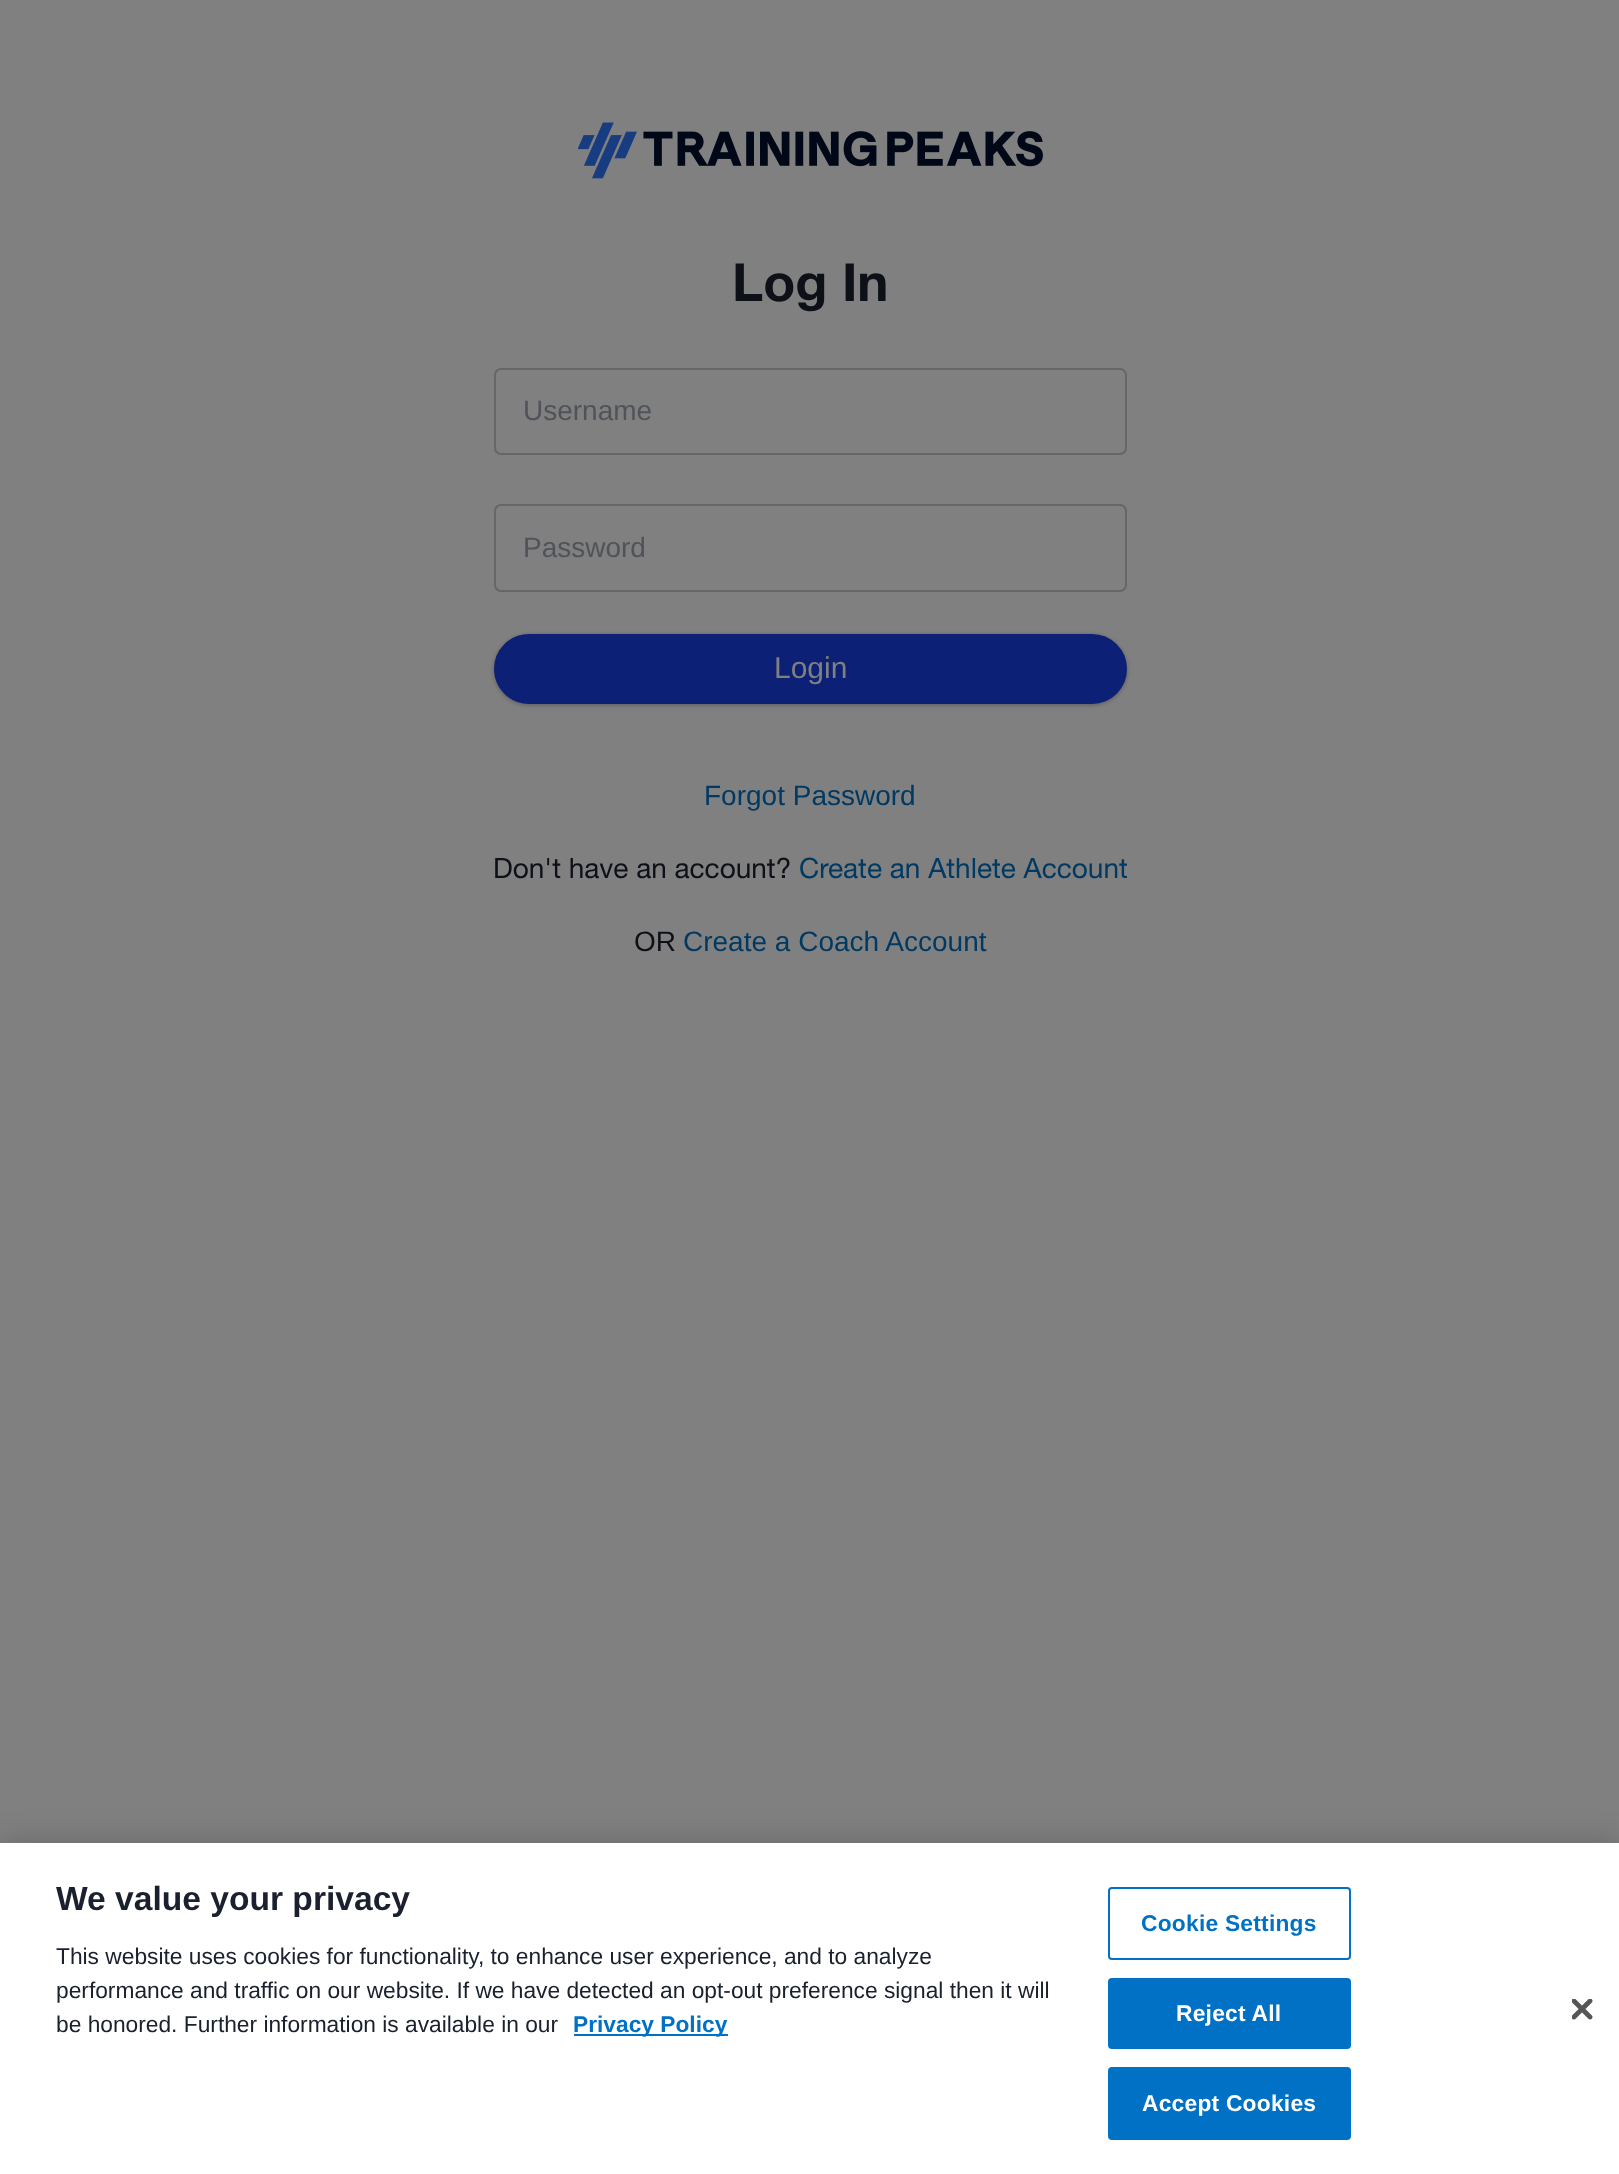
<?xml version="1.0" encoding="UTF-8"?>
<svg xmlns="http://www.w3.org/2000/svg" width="1619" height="2174">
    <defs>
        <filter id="blur1" x="-50%" y="-200%" width="200%" height="500%"><feGaussianBlur stdDeviation="2"/></filter>
        <filter id="blur2" x="-50%" y="-200%" width="200%" height="500%"><feGaussianBlur stdDeviation="16"/></filter>
    </defs>
    <rect width="100%" height="100%" fill="#808080"/>
    <image x="578" y="122" width="465" height="57" href="img_01.png"/>
    <text x="732" y="301" font-family="Helvetica Neue" font-size="52.5" font-weight="700" fill="#0D1017">Log In</text>
    <rect x="495" y="369" width="631" height="85" rx="6" fill="none" stroke="#666666" stroke-width="2"/>
    <text x="523" y="420" font-family="Liberation Sans" font-size="28" fill="#505359">Username</text>
    <rect x="495" y="505" width="631" height="86" rx="6" fill="none" stroke="#666666" stroke-width="2"/>
    <text x="523" y="557" font-family="Liberation Sans" font-size="28" fill="#505359">Password</text>
    <rect x="494" y="635" width="633" height="70" rx="35" fill="#0D1017" fill-opacity="0.3" filter="url(#blur1)"/>
    <rect x="495" y="635" width="631" height="68" rx="34" fill="#0C2076" stroke="#0C2076" stroke-width="2"/>
    <text x="774" y="678" font-family="Liberation Sans" font-size="30" fill="#808080">Login</text>
    <text x="704" y="805" font-family="Liberation Sans" font-size="28" fill="#003962">Forgot Password</text>
    <text x="493" y="878" font-family="'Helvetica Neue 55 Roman'" font-size="28" fill="#0D1017">Don't have an account?</text>
    <text x="799" y="878" font-family="'Helvetica Neue 55 Roman'" font-size="28" fill="#003962">Create an Athlete Account</text>
    <text x="634" y="951" font-family="Liberation Sans" font-size="28" fill="#0D1017">OR</text>
    <text x="683" y="951" font-family="Liberation Sans" font-size="28" fill="#003962">Create a Coach Account</text>
    <rect x="0" y="1843" width="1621" height="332" fill="#000000" fill-opacity="0.2" filter="url(#blur2)"/>
    <rect x="0" y="1843" width="1619" height="331" fill="#FFFFFF"/>
    <text x="56" y="1910" font-family="Liberation Sans" font-size="33.6" font-weight="700" fill="#1A202E">We value your privacy</text>
    <text font-family="Liberation Sans" font-size="22.75" fill="#1A202E">
        <tspan x="56" y="1964">This website uses cookies for functionality, to enhance user experience, and to analyze</tspan>
        <tspan x="56" y="1998">performance and traffic on our website. If we have detected an opt-out preference signal then it will</tspan>
        <tspan x="56" y="2032">be honored. Further information is available in our</tspan>
    </text>
    <rect x="574" y="2034" width="154" height="2" fill="#0071C4"/>
    <text x="573" y="2032" font-family="Liberation Sans" font-size="22.75" font-weight="700" fill="#0071C4">Privacy Policy</text>
    <rect x="1109" y="1888" width="241" height="71" rx="3" fill="none" stroke="#0071C4" stroke-width="2"/>
    <text x="1141" y="1931" font-family="Liberation Sans" font-size="22.75" font-weight="700" letter-spacing="0.25" fill="#0071C4">Cookie Settings</text>
    <rect x="1109" y="1979" width="241" height="69" rx="3" fill="#0071C4" stroke="#0071C4" stroke-width="2"/>
    <text x="1176" y="2021" font-family="Liberation Sans" font-size="22.75" font-weight="700" letter-spacing="0.25" fill="#FFFFFF">Reject All</text>
    <rect x="1109" y="2068" width="241" height="71" rx="3" fill="#0071C4" stroke="#0071C4" stroke-width="2"/>
    <text x="1142" y="2111" font-family="Liberation Sans" font-size="22.75" font-weight="700" letter-spacing="0.25" fill="#FFFFFF">Accept Cookies</text>
    <image x="1572" y="1999" width="21" height="21" href="img_02.png"/>
</svg>
